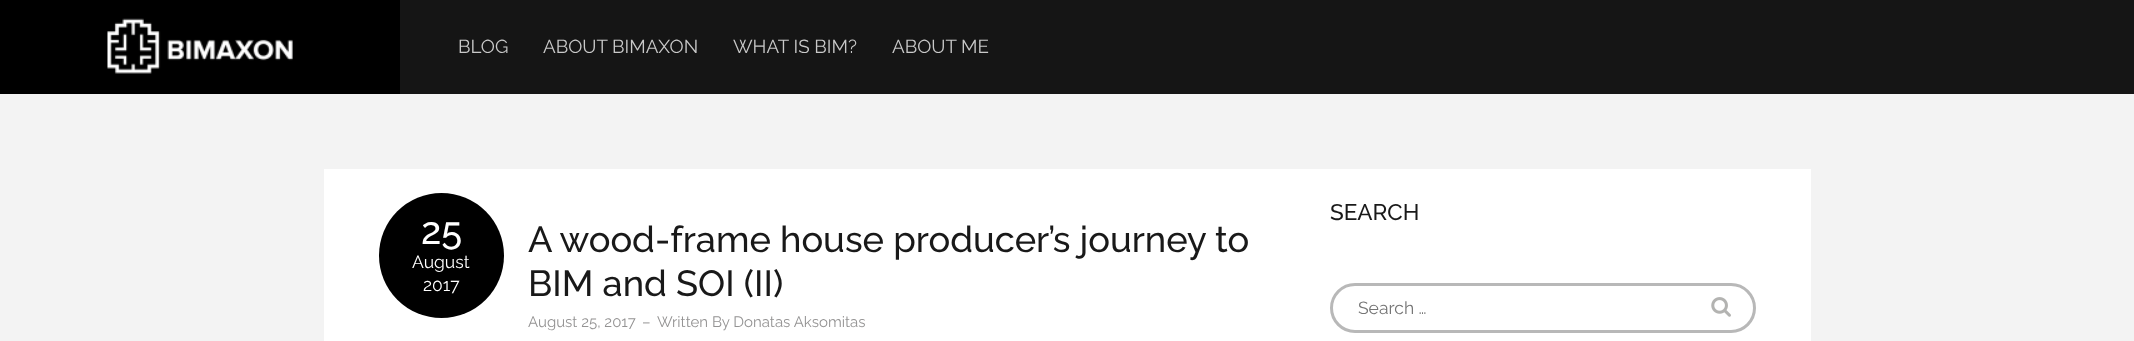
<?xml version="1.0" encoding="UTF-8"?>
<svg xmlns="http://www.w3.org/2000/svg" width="2134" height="341">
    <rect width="100%" height="100%" fill="#F3F3F3"/>
    <rect x="400" y="0" width="1734" height="94" fill="#151515"/>
    <rect x="0" y="0" width="400" height="94" fill="#000000"/>
    <image x="107" y="18" width="186" height="56" href="img_01.png"/>
    <text x="458" y="53" font-family="Raleway" font-size="18.75" fill="#C9C9C9">BLOG</text>
    <text x="543" y="53" font-family="Raleway" font-size="18.75" fill="#C9C9C9">ABOUT BIMAXON</text>
    <text x="733" y="53" font-family="Raleway" font-size="18.75" fill="#C9C9C9">WHAT IS BIM?</text>
    <text x="892" y="53" font-family="Raleway" font-size="18.75" fill="#C9C9C9">ABOUT ME</text>
    <rect x="324" y="169" width="1487" height="172" fill="#FFFFFF"/>
    <circle cx="441.5" cy="255.5" r="62.5" fill="#000000"/>
    <text x="421" y="244" font-family="Raleway" font-size="38" font-weight="500" fill="#FFFFFF">25</text>
    <text x="412" y="268" font-family="Raleway" font-size="17.5" fill="#FFFFFF">August</text>
    <text x="423" y="291" font-family="Raleway" font-size="17.5" fill="#FFFFFF">2017</text>
    <text font-family="Raleway" font-size="36.25" font-weight="500" fill="#191919">
        <tspan x="528" y="252">A wood-frame house producer’s journey to</tspan>
        <tspan x="528" y="296">BIM and SOI (II)</tspan>
    </text>
    <text x="528" y="327" font-family="Raleway" font-size="15" fill="#949393">August 25, 2017</text>
    <text x="642" y="327" font-family="Raleway" font-size="15" fill="#949393">–</text>
    <text x="657" y="327" font-family="Raleway" font-size="15" fill="#949393">Written By Donatas Aksomitas</text>
    <text x="1330" y="220" font-family="Raleway" font-size="22.5" font-weight="500" fill="#191919">SEARCH</text>
    <rect x="1331.5" y="284.5" width="423" height="47" rx="23.5" fill="none" stroke="#B8B8B8" stroke-width="3"/>
    <text x="1358" y="314" font-family="Raleway" font-size="17.5" fill="#757575">Search …</text>
    <image x="1711" y="297" width="20" height="20" href="img_02.png"/>
</svg>
